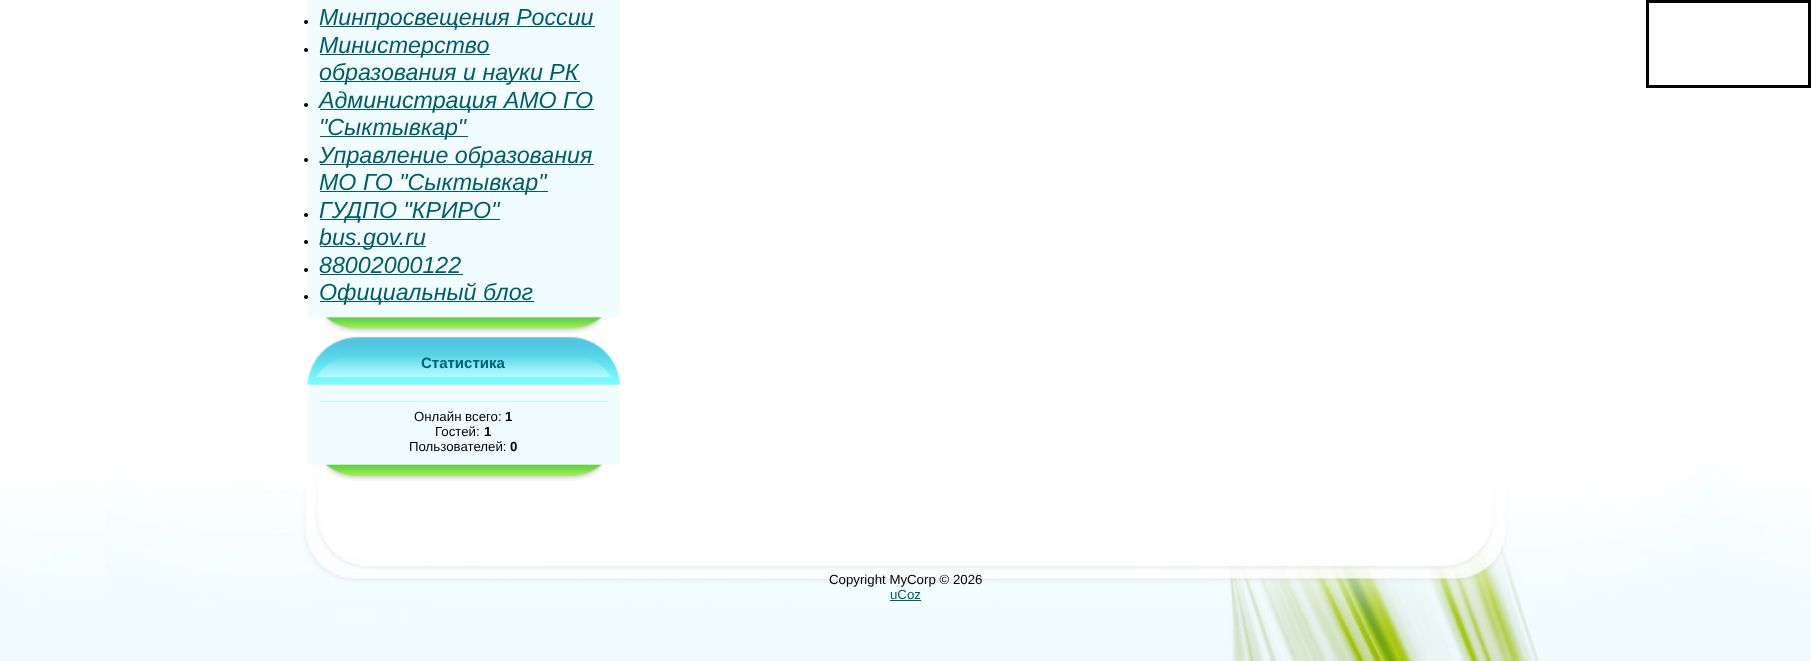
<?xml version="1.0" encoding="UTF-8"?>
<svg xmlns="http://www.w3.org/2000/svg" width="1811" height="661">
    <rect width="100%" height="100%" fill="#FFFFFF"/>
    <image x="0" y="465" width="1811" height="196" href="img_01.png"/>
    <image x="307" y="0" width="313" height="334" href="img_02.png"/>
    <circle cx="306" cy="22" r="2" fill="#000000"/>
    <rect x="320" y="26" width="275" height="1" fill="#005D68"/>
    <text x="319" y="25" font-family="Liberation Sans" font-size="23.25" font-style="italic" fill="#005D68">Минпросвещения России</text>
    <circle cx="306" cy="50" r="2" fill="#000000"/>
    <rect x="320" y="54" width="170" height="1" fill="#005D68"/>
    <text x="319" y="53" font-family="Liberation Sans" font-size="23.25" font-style="italic" fill="#005D68">Министерство</text>
    <rect x="320" y="81" width="260" height="1" fill="#005D68"/>
    <text x="319" y="80" font-family="Liberation Sans" font-size="23.25" font-style="italic" fill="#005D68">образования и науки РК</text>
    <circle cx="306" cy="105" r="2" fill="#000000"/>
    <rect x="320" y="109" width="274" height="1" fill="#005D68"/>
    <text x="319" y="108" font-family="Liberation Sans" font-size="23.25" font-style="italic" fill="#005D68">Администрация АМО ГО</text>
    <rect x="320" y="136" width="148" height="1" fill="#005D68"/>
    <text x="319" y="135" font-family="Liberation Sans" font-size="23.25" font-style="italic" fill="#005D68">"Сыктывкар"</text>
    <circle cx="306" cy="160" r="2" fill="#000000"/>
    <rect x="320" y="164" width="274" height="1" fill="#005D68"/>
    <text x="319" y="163" font-family="Liberation Sans" font-size="23.25" font-style="italic" fill="#005D68">Управление образования</text>
    <rect x="320" y="191" width="228" height="1" fill="#005D68"/>
    <text x="319" y="190" font-family="Liberation Sans" font-size="23.25" font-style="italic" fill="#005D68">МО ГО "Сыктывкар"</text>
    <circle cx="306" cy="215" r="2" fill="#000000"/>
    <rect x="320" y="219" width="180" height="1" fill="#005D68"/>
    <text x="319" y="218" font-family="Liberation Sans" font-size="23.25" font-style="italic" fill="#005D68">ГУДПО "КРИРО"</text>
    <circle cx="306" cy="242" r="2" fill="#000000"/>
    <rect x="320" y="246" width="106" height="1" fill="#005D68"/>
    <text x="319" y="245" font-family="Liberation Sans" font-size="23.25" font-style="italic" fill="#005D68">bus.gov.ru</text>
    <circle cx="306" cy="270" r="2" fill="#000000"/>
    <text x="319" y="273" font-family="Liberation Sans" font-size="23.25" font-style="italic" fill="#005D68">88002000122</text>
    <rect x="320" y="274" width="143" height="1" fill="#005D68"/>
    <circle cx="306" cy="297" r="2" fill="#000000"/>
    <rect x="320" y="301" width="214" height="1" fill="#005D68"/>
    <text x="319" y="300" font-family="Liberation Sans" font-size="23.25" font-style="italic" fill="#005D68">Официальный блог</text>
    <rect x="1647.5" y="1.5" width="162" height="85" fill="none" stroke="#000000" stroke-width="3"/>
    <image x="307" y="337" width="313" height="48" href="img_03.png"/>
    <text x="421" y="368" font-family="Liberation Sans" font-size="15" font-weight="700" fill="#006076">Статистика</text>
    <image x="307" y="387" width="313" height="94" href="img_04.png"/>
    <rect x="320" y="401" width="288" height="1" fill="#B9FAFF"/>
    <text x="414" y="421" font-family="Liberation Sans" font-size="13.25" fill="#000000">Онлайн всего:</text>
    <text x="505" y="421" font-family="Liberation Sans" font-size="13.25" font-weight="700" fill="#000000">1</text>
    <text x="435" y="436" font-family="Liberation Sans" font-size="13.25" fill="#000000">Гостей:</text>
    <text x="484" y="436" font-family="Liberation Sans" font-size="13.25" font-weight="700" fill="#000000">1</text>
    <text x="409" y="451" font-family="Liberation Sans" font-size="13.25" fill="#000000">Пользователей:</text>
    <text x="510" y="451" font-family="Liberation Sans" font-size="13.25" font-weight="700" fill="#000000">0</text>
    <text x="829" y="584" font-family="Liberation Sans" font-size="13.25" fill="#000000">Copyright MyCorp © 2026</text>
    <text x="890" y="599" font-family="Liberation Sans" font-size="13.25" fill="#005D68">uCoz</text>
    <rect x="890" y="600" width="31" height="1" fill="#005D68"/>
</svg>
